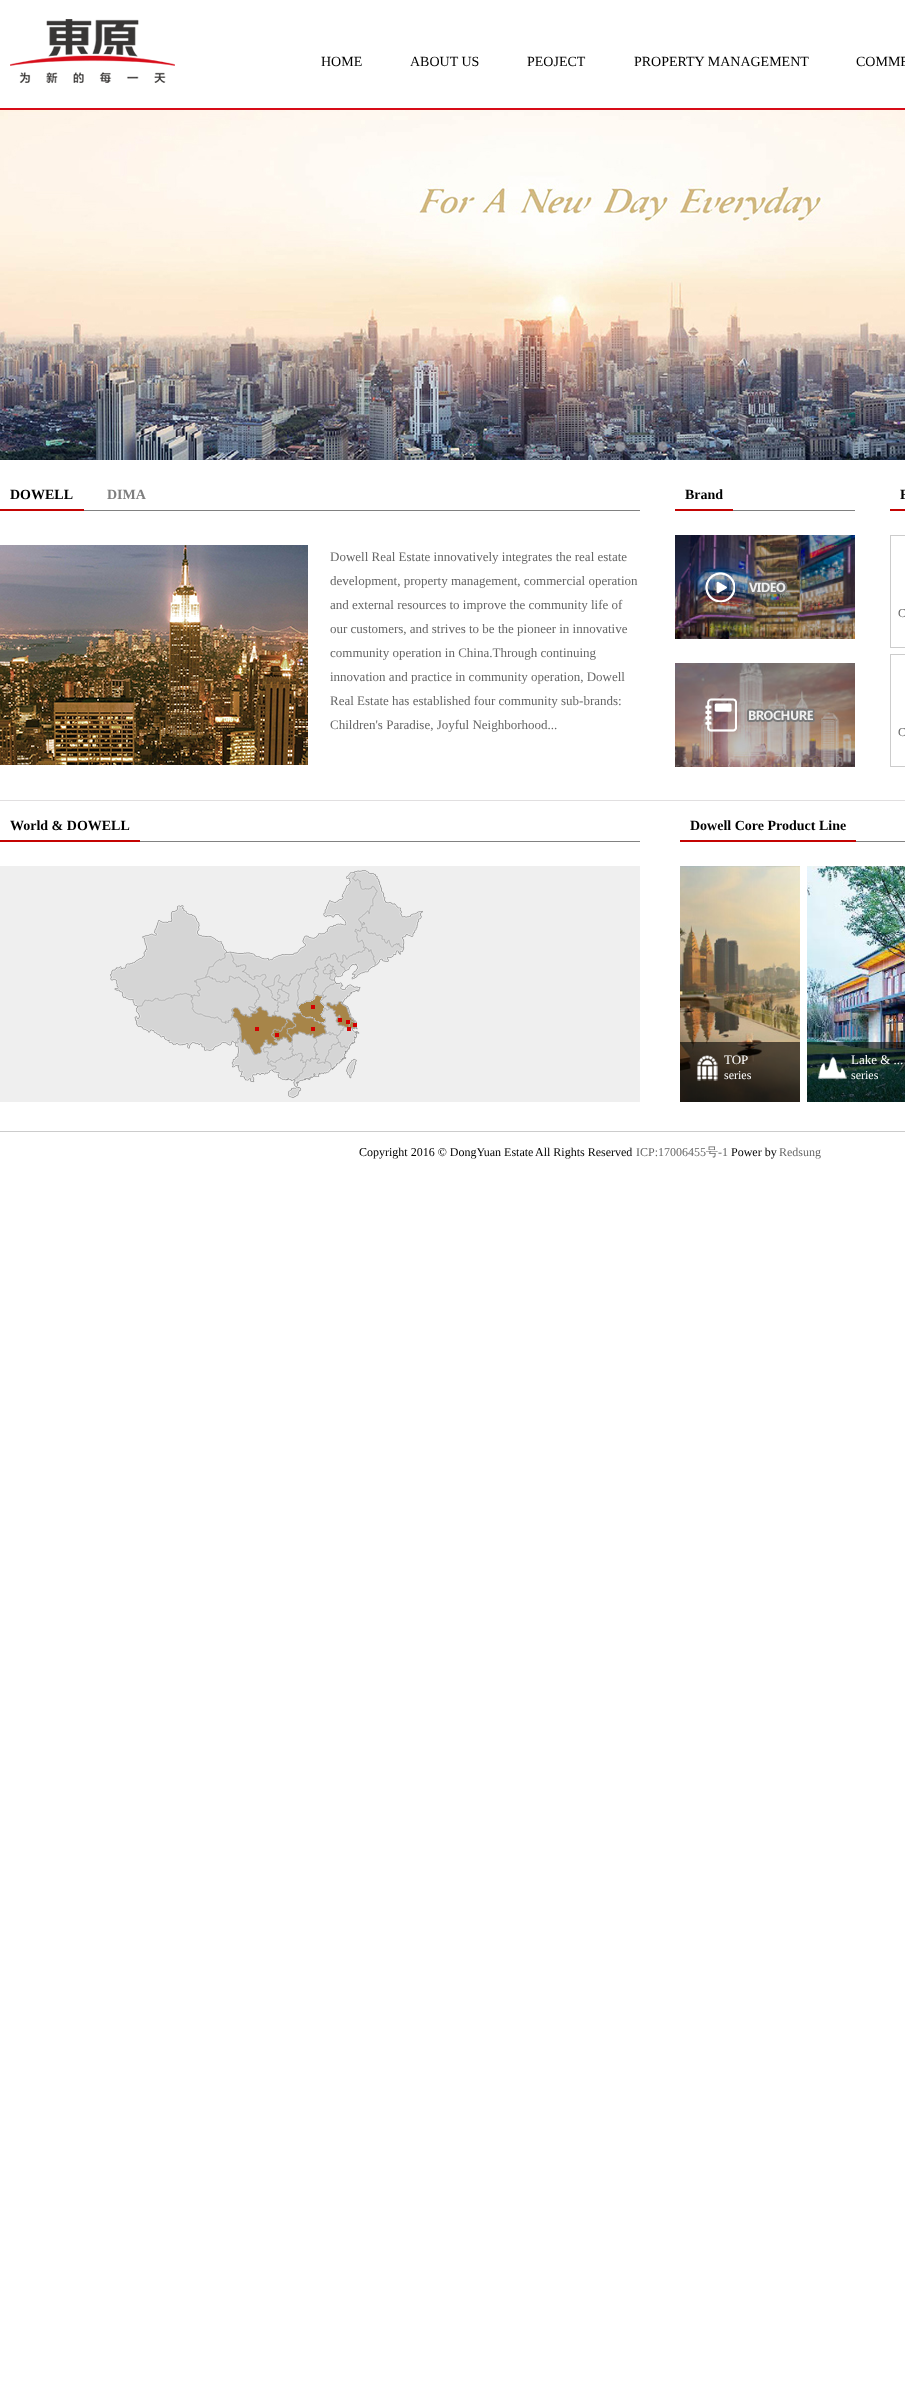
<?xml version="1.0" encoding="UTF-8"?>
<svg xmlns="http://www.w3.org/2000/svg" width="905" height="2396">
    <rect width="100%" height="100%" fill="#FFFFFF"/>
    <rect x="0" y="108" width="905" height="2" fill="#D80C18"/>
    <image x="10" y="19" width="165" height="64" href="img_01.png"/>
    <text x="321" y="66" font-family="Liberation Serif" font-size="14" fill="#000000">HOME</text>
    <text x="410" y="66" font-family="Liberation Serif" font-size="14" fill="#000000">ABOUT US</text>
    <text x="527" y="66" font-family="Liberation Serif" font-size="14" fill="#000000">PEOJECT</text>
    <text x="634" y="66" font-family="Liberation Serif" font-size="14" fill="#000000">PROPERTY MANAGEMENT</text>
    <text x="856" y="66" font-family="Liberation Serif" font-size="14" fill="#000000">COMME</text>
    <image x="0" y="110" width="905" height="350" href="img_02.png"/>
    <image x="573" y="441" width="11" height="11" href="img_03.png"/>
    <image x="594" y="441" width="11" height="11" href="img_04.png"/>
    <image x="615" y="441" width="11" height="11" href="img_05.png"/>
    <image x="636" y="441" width="11" height="11" href="img_06.png"/>
    <image x="657" y="441" width="11" height="11" href="img_07.png"/>
    <rect x="0" y="800" width="905" height="1" fill="#E1DFE0"/>
    <rect x="84" y="510" width="556" height="1" fill="#818181"/>
    <text x="10" y="499" font-family="Liberation Serif" font-size="14" font-weight="700" fill="#000000">DOWELL</text>
    <text x="107" y="499" font-family="Liberation Serif" font-size="14" font-weight="700" fill="#7F7F7F">DIMA</text>
    <rect x="0" y="509" width="84" height="2" fill="#C40403"/>
    <image x="0" y="545" width="308" height="220" href="img_08.png"/>
    <text font-family="Liberation Serif" font-size="13" fill="#666666">
        <tspan x="330" y="561">Dowell Real Estate innovatively integrates the real estate</tspan>
        <tspan x="330" y="585">development, property management, commercial operation</tspan>
        <tspan x="330" y="609">and external resources to improve the community life of</tspan>
        <tspan x="330" y="633">our customers, and strives to be the pioneer in innovative</tspan>
        <tspan x="330" y="657">community operation in China.Through continuing</tspan>
        <tspan x="330" y="681">innovation and practice in community operation, Dowell</tspan>
        <tspan x="330" y="705">Real Estate has established four community sub-brands:</tspan>
        <tspan x="330" y="729">Children's Paradise, Joyful Neighborhood...</tspan>
    </text>
    <rect x="733" y="510" width="122" height="1" fill="#818181"/>
    <rect x="675" y="509" width="58" height="2" fill="#C40403"/>
    <text x="685" y="499" font-family="Liberation Serif" font-size="14" font-weight="700" fill="#000000">Brand</text>
    <image x="675" y="535" width="180" height="104" href="img_09.png"/>
    <image x="705" y="572" width="30" height="30" href="img_10.png"/>
    <image x="747" y="580" width="41" height="14" href="img_11.png"/>
    <image x="675" y="663" width="180" height="104" href="img_12.png"/>
    <image x="705" y="698" width="32" height="34" href="img_13.png"/>
    <image x="747" y="708" width="68" height="14" href="img_14.png"/>
    <rect x="890" y="509" width="15" height="2" fill="#C40403"/>
    <text x="900" y="499" font-family="Liberation Serif" font-size="14" font-weight="700" fill="#000000">F</text>
    <rect x="890.5" y="535.5" width="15" height="112" fill="none" stroke="#CCCCCC"/>
    <text x="898" y="617" font-family="Liberation Serif" font-size="12" fill="#666666">C</text>
    <rect x="890.5" y="654.5" width="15" height="112" fill="none" stroke="#CCCCCC"/>
    <text x="898" y="736" font-family="Liberation Serif" font-size="12" fill="#666666">C</text>
    <rect x="140" y="841" width="500" height="1" fill="#818181"/>
    <rect x="0" y="840" width="140" height="2" fill="#C40403"/>
    <text x="10" y="830" font-family="Liberation Serif" font-size="14" font-weight="700" fill="#000000">World &amp; DOWELL</text>
    <rect x="0" y="866" width="640" height="236" fill="#EFEFEF"/>
    <image x="110" y="870" width="313" height="228" href="img_15.png"/>
    <rect x="311" y="1005" width="4" height="4" fill="#D30000"/>
    <rect x="338" y="1018" width="4" height="4" fill="#D30000"/>
    <rect x="346" y="1020" width="4" height="4" fill="#D30000"/>
    <rect x="353" y="1023" width="4" height="4" fill="#D30000"/>
    <rect x="255" y="1027" width="4" height="4" fill="#D30000"/>
    <rect x="311" y="1027" width="4" height="4" fill="#D30000"/>
    <rect x="347" y="1027" width="4" height="4" fill="#D30000"/>
    <rect x="275" y="1033" width="4" height="4" fill="#D30000"/>
    <rect x="856" y="841" width="49" height="1" fill="#818181"/>
    <rect x="680" y="840" width="176" height="2" fill="#C40403"/>
    <text x="690" y="830" font-family="Liberation Serif" font-size="14" font-weight="700" fill="#000000">Dowell Core Product Line</text>
    <image x="680" y="866" width="120" height="236" href="img_16.png"/>
    <rect x="680" y="1042" width="120" height="60" fill="#000000" fill-opacity="0.6"/>
    <image x="697" y="1055" width="21" height="26" href="img_17.png"/>
    <text x="724" y="1064" font-family="Liberation Serif" font-size="13" fill="#FFFFFF">TOP</text>
    <text x="724" y="1079" font-family="Liberation Serif" font-size="12" fill="#FFFFFF">series</text>
    <image x="807" y="866" width="98" height="236" href="img_18.png"/>
    <rect x="807" y="1042" width="98" height="60" fill="#000000" fill-opacity="0.6"/>
    <image x="818" y="1057" width="29" height="22" href="img_19.png"/>
    <text x="851" y="1064" font-family="Liberation Serif" font-size="13" fill="#FFFFFF">Lake &amp; ...</text>
    <text x="851" y="1079" font-family="Liberation Serif" font-size="12" fill="#FFFFFF">series</text>
    <rect x="0" y="1131" width="905" height="1" fill="#CCCCCC"/>
    <text x="359" y="1156" font-family="Liberation Serif" font-size="12" fill="#000000">Copyright 2016 © DongYuan Estate</text>
    <text x="535" y="1156" font-family="Liberation Serif" font-size="12" fill="#000000">All Rights Reserved</text>
    <text x="636" y="1156" font-family="Liberation Serif" font-size="12" fill="#666666">ICP:17006455</text>
    <text x="706" y="1156" font-family="WenQuanYi Zen Hei" font-size="12" font-weight="500" fill="#666666">号</text>
    <text x="718" y="1156" font-family="Liberation Serif" font-size="12" fill="#666666">-1</text>
    <text x="731" y="1156" font-family="Liberation Serif" font-size="12" fill="#000000">Power by</text>
    <text x="779" y="1156" font-family="Liberation Serif" font-size="12" fill="#666666">Redsung</text>
</svg>
